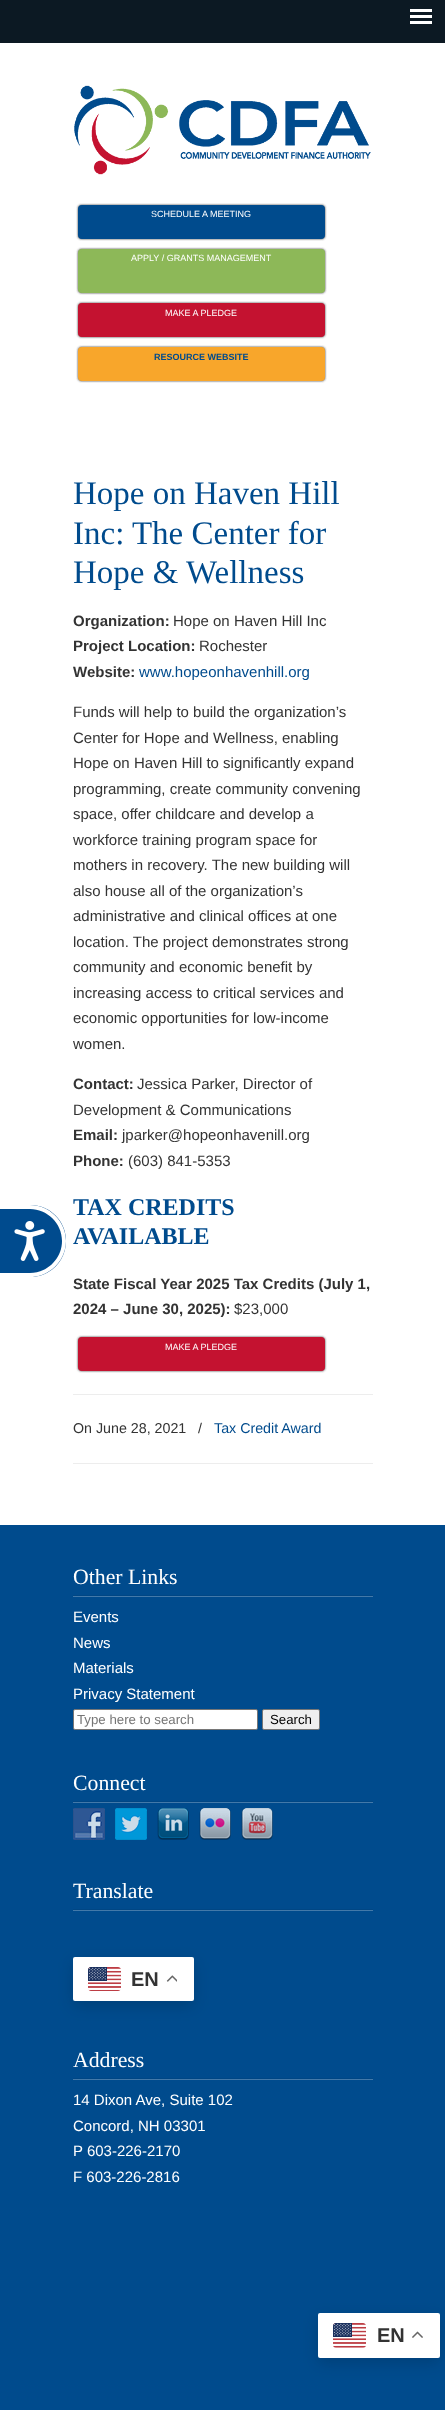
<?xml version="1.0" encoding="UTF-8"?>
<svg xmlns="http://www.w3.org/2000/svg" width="445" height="2410">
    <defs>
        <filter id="blur1" x="-50%" y="-200%" width="200%" height="500%"><feGaussianBlur stdDeviation="1"/></filter>
        <filter id="blur2" x="-50%" y="-200%" width="200%" height="500%"><feGaussianBlur stdDeviation="7.5"/></filter>
    </defs>
    <rect width="100%" height="100%" fill="#004B8D"/>
    <rect x="0" y="0" width="445" height="43" fill="#0C1923"/>
    <rect x="410" y="9" width="22" height="3" fill="#FFFFFF"/>
    <rect x="410" y="15" width="22" height="3" fill="#FFFFFF"/>
    <rect x="410" y="21" width="22" height="3" fill="#FFFFFF"/>
    <rect x="0" y="43" width="445" height="1482" fill="#FFFFFF"/>
    <path d="M 0 1205 H 30 C 50 1205 66 1221 66 1241 C 66 1261 50 1277 30 1277 H 0 Z" fill="#004B8E"/>
    <path d="M 0 1205 H 30 C 49 1205 66 1221 66 1241 C 66 1261 49 1277 30 1277 H 0 Z M 0 1209 H 30 C 47 1209 62 1223 62 1241 C 62 1259 47 1273 30 1273 H 0 Z" fill="#FFFFFF" fill-rule="evenodd"/>
    <image x="14" y="1221" width="31" height="40" href="img_01.png"/>
    <image x="74" y="85" width="297" height="90" href="img_02.png"/>
    <rect x="78" y="205" width="247" height="34" rx="4" fill="#333333" filter="url(#blur1)"/>
    <rect x="79" y="206" width="245" height="32" rx="3" fill="#004B8D" stroke="#004B8D" stroke-width="2"/>
    <text x="151" y="217" font-family="Liberation Sans" font-size="9" fill="#FFFFFF">SCHEDULE A MEETING</text>
    <rect x="78" y="249" width="247" height="44" rx="4" fill="#333333" filter="url(#blur1)"/>
    <rect x="79" y="250" width="245" height="42" rx="3" fill="#8DB858" stroke="#8DB858" stroke-width="2"/>
    <text x="131" y="261" font-family="Liberation Sans" font-size="9" fill="#FFFFFF">APPLY / GRANTS MANAGEMENT</text>
    <rect x="78" y="303" width="247" height="34" rx="4" fill="#333333" filter="url(#blur1)"/>
    <rect x="79" y="304" width="245" height="32" rx="3" fill="#C41230" stroke="#C41230" stroke-width="2"/>
    <text x="165" y="316" font-family="Liberation Sans" font-size="9" fill="#FFFFFF">MAKE A PLEDGE</text>
    <rect x="78" y="347" width="247" height="34" rx="4" fill="#333333" filter="url(#blur1)"/>
    <rect x="79" y="348" width="245" height="32" rx="3" fill="#F8A62B" stroke="#F8A62B" stroke-width="2"/>
    <text x="154" y="360" font-family="Liberation Sans" font-size="9" font-weight="700" fill="#004B8D">RESOURCE WEBSITE</text>
    <text font-family="Liberation Serif" font-size="33" fill="#004B8D">
        <tspan x="73" y="504">Hope on Haven Hill</tspan>
        <tspan x="73" y="544">Inc: The Center for</tspan>
        <tspan x="73" y="583">Hope &amp; Wellness</tspan>
    </text>
    <text x="73" y="626" font-family="Liberation Sans" font-size="15" font-weight="700" fill="#333333">Organization:</text>
    <text x="173" y="626" font-family="Liberation Sans" font-size="15" fill="#333333">Hope on Haven Hill Inc</text>
    <text x="73" y="651" font-family="Liberation Sans" font-size="15" font-weight="700" fill="#333333">Project Location:</text>
    <text x="199" y="651" font-family="Liberation Sans" font-size="15" fill="#333333">Rochester</text>
    <text x="73" y="677" font-family="Liberation Sans" font-size="15" font-weight="700" fill="#333333">Website:</text>
    <text x="139" y="677" font-family="Liberation Sans" font-size="15" fill="#004B8D">www.hopeonhavenhill.org</text>
    <text font-family="Liberation Sans" font-size="15" fill="#333333">
        <tspan x="73" y="717">Funds will help to build the organization’s</tspan>
        <tspan x="73" y="743">Center for Hope and Wellness, enabling</tspan>
        <tspan x="73" y="768">Hope on Haven Hill to significantly expand</tspan>
        <tspan x="73" y="794">programming, create community convening</tspan>
        <tspan x="73" y="819">space, offer childcare and develop a</tspan>
        <tspan x="73" y="845">workforce training program space for</tspan>
        <tspan x="73" y="870">mothers in recovery. The new building will</tspan>
        <tspan x="73" y="896">also house all of the organization’s</tspan>
        <tspan x="73" y="921">administrative and clinical offices at one</tspan>
        <tspan x="73" y="947">location. The project demonstrates strong</tspan>
        <tspan x="73" y="972">community and economic benefit by</tspan>
        <tspan x="73" y="998">increasing access to critical services and</tspan>
        <tspan x="73" y="1023">economic opportunities for low-income</tspan>
        <tspan x="73" y="1049">women.</tspan>
    </text>
    <text x="73" y="1089" font-family="Liberation Sans" font-size="15" font-weight="700" fill="#333333">Contact:</text>
    <text x="137" y="1089" font-family="Liberation Sans" font-size="15" fill="#333333">Jessica Parker, Director of</text>
    <text x="73" y="1115" font-family="Liberation Sans" font-size="15" fill="#333333">Development &amp; Communications</text>
    <text x="73" y="1140" font-family="Liberation Sans" font-size="15" font-weight="700" fill="#333333">Email:</text>
    <text x="122" y="1140" font-family="Liberation Sans" font-size="15" fill="#333333">jparker@hopeonhavenill.org</text>
    <text x="73" y="1166" font-family="Liberation Sans" font-size="15" font-weight="700" fill="#333333">Phone:</text>
    <text x="128" y="1166" font-family="Liberation Sans" font-size="15" fill="#333333">(603) 841-5353</text>
    <text font-family="Liberation Serif" font-size="24" font-weight="700" fill="#004B8D">
        <tspan x="73" y="1215">TAX CREDITS</tspan>
        <tspan x="73" y="1244">AVAILABLE</tspan>
    </text>
    <text font-family="Liberation Sans" font-size="15" font-weight="700" fill="#333333">
        <tspan x="73" y="1289">State Fiscal Year 2025 Tax Credits (July 1,</tspan>
        <tspan x="73" y="1314">2024 – June 30, 2025):</tspan>
    </text>
    <text x="234" y="1314" font-family="Liberation Sans" font-size="15" fill="#333333">$23,000</text>
    <rect x="78" y="1337" width="247" height="34" rx="4" fill="#333333" filter="url(#blur1)"/>
    <rect x="79" y="1338" width="245" height="32" rx="3" fill="#C41230" stroke="#C41230" stroke-width="2"/>
    <text x="165" y="1350" font-family="Liberation Sans" font-size="9" fill="#FFFFFF">MAKE A PLEDGE</text>
    <rect x="73" y="1394" width="300" height="1" fill="#EDEDED"/>
    <text x="73" y="1433" font-family="Liberation Sans" font-size="14.25" fill="#333333">On June 28, 2021</text>
    <text x="198" y="1433" font-family="Liberation Sans" font-size="14.25" fill="#333333">/</text>
    <text x="214" y="1433" font-family="Liberation Sans" font-size="14.25" fill="#004B8D">Tax Credit Award</text>
    <rect x="73" y="1463" width="300" height="1" fill="#EDEDED"/>
    <image x="73" y="1595" width="300" height="2" href="img_03.png"/>
    <text x="73" y="1584" font-family="Liberation Serif" font-size="21.75" fill="#FFFFFF">Other Links</text>
    <text font-family="Liberation Sans" font-size="15" fill="#FFFFFF">
        <tspan x="73" y="1622">Events</tspan>
        <tspan x="73" y="1648">News</tspan>
        <tspan x="73" y="1673">Materials</tspan>
        <tspan x="73" y="1699">Privacy Statement</tspan>
    </text>
    <rect x="73.5" y="1709.5" width="184" height="20" rx="1.5" fill="#FFFFFF" stroke="#767676"/>
    <text x="77" y="1724" font-family="Liberation Sans" font-size="13.25" fill="#757575">Type here to search</text>
    <rect x="262.5" y="1709.5" width="57" height="20" rx="1.5" fill="#EFEFEF" stroke="#767676"/>
    <text x="270" y="1724" font-family="Liberation Sans" font-size="13.25" fill="#000000">Search</text>
    <image x="73" y="1801" width="300" height="2" href="img_03.png"/>
    <text x="73" y="1790" font-family="Liberation Serif" font-size="21.75" fill="#FFFFFF">Connect</text>
    <image x="73" y="1808" width="32" height="32" href="img_04.png"/>
    <image x="115" y="1808" width="32" height="32" href="img_05.png"/>
    <image x="157" y="1808" width="32" height="32" href="img_06.png"/>
    <image x="199" y="1808" width="32" height="32" href="img_07.png"/>
    <image x="241" y="1808" width="32" height="32" href="img_08.png"/>
    <image x="73" y="1909" width="300" height="2" href="img_03.png"/>
    <text x="73" y="1898" font-family="Liberation Serif" font-size="21.75" fill="#FFFFFF">Translate</text>
    <rect x="73" y="1962" width="121" height="44" rx="2" fill="#000000" fill-opacity="0.15" filter="url(#blur2)"/>
    <rect x="73" y="1957" width="121" height="44" rx="2" fill="#FFFFFF"/>
    <image x="88" y="1967" width="33" height="24" href="img_09.png"/>
    <text x="131" y="1986" font-family="Liberation Sans" font-size="20" font-weight="700" fill="#333333">EN</text>
    <image x="166" y="1975" width="11" height="7" href="img_10.png"/>
    <image x="73" y="2078" width="300" height="2" href="img_03.png"/>
    <text x="73" y="2067" font-family="Liberation Serif" font-size="21.75" fill="#FFFFFF">Address</text>
    <text font-family="Liberation Sans" font-size="15" fill="#FFFFFF">
        <tspan x="73" y="2105">14 Dixon Ave, Suite 102</tspan>
        <tspan x="73" y="2131">Concord, NH 03301</tspan>
        <tspan x="73" y="2156">P 603-226-2170</tspan>
        <tspan x="73" y="2182">F 603-226-2816</tspan>
    </text>
    <rect x="318" y="2318" width="122" height="45" rx="2" fill="#000000" fill-opacity="0.15" filter="url(#blur2)"/>
    <rect x="318" y="2313" width="122" height="45" rx="2" fill="#FFFFFF"/>
    <image x="333" y="2323" width="33" height="25" href="img_11.png"/>
    <text x="377" y="2342" font-family="Liberation Sans" font-size="20" font-weight="700" fill="#333333">EN</text>
    <image x="412" y="2331" width="11" height="7" href="img_12.png"/>
</svg>
